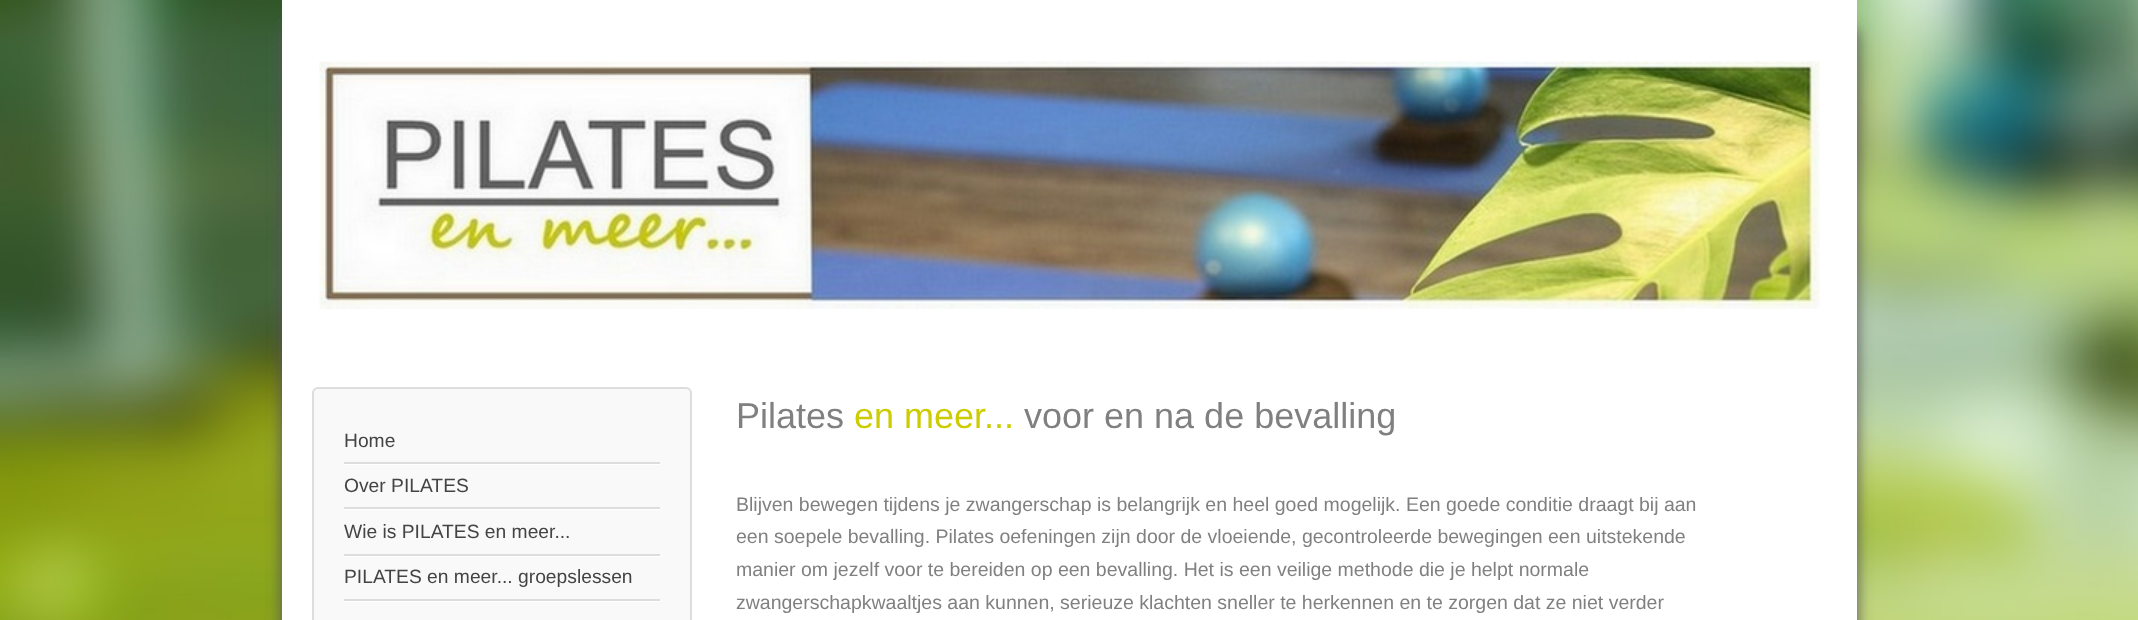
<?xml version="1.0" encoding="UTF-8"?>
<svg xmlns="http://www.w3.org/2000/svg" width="2138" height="620">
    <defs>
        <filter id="blur1" x="-50%" y="-200%" width="200%" height="500%"><feGaussianBlur stdDeviation="7.5"/></filter>
    </defs>
    <rect width="100%" height="100%" fill="#FFFFFF"/>
    <image x="0" y="0" width="2138" height="620" href="img_01.png"/>
    <rect x="282" y="30" width="1575" height="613" fill="#555555" filter="url(#blur1)"/>
    <rect x="282" y="0" width="1575" height="620" fill="#FFFFFF"/>
    <image x="319" y="61" width="1501" height="248" href="img_02.png"/>
    <rect x="313" y="388" width="378" height="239" rx="5" fill="#F9F9F9" stroke="#DDDDDD" stroke-width="2"/>
    <rect x="344" y="464" width="316" height="1" fill="#FFFFFF"/>
    <rect x="344" y="462" width="316" height="2" fill="#DDDDDD"/>
    <text x="344" y="447" font-family="Liberation Sans" font-size="19.25" fill="#444444">Home</text>
    <rect x="344" y="509" width="316" height="1" fill="#FFFFFF"/>
    <rect x="344" y="507" width="316" height="2" fill="#DDDDDD"/>
    <text x="344" y="492" font-family="Liberation Sans" font-size="19.25" fill="#444444">Over PILATES</text>
    <rect x="344" y="556" width="316" height="1" fill="#FFFFFF"/>
    <rect x="344" y="554" width="316" height="2" fill="#DDDDDD"/>
    <text x="344" y="538" font-family="Liberation Sans" font-size="19.25" fill="#444444">Wie is PILATES en meer...</text>
    <rect x="344" y="601" width="316" height="1" fill="#FFFFFF"/>
    <rect x="344" y="599" width="316" height="2" fill="#DDDDDD"/>
    <text x="344" y="583" font-family="Liberation Sans" font-size="19.25" fill="#444444">PILATES en meer... groepslessen</text>
    <text x="736" y="428" font-family="Liberation Sans" font-size="36" fill="#808080">Pilates</text>
    <text x="854" y="428" font-family="Liberation Sans" font-size="36" fill="#CCCC00">en meer...</text>
    <text x="1024" y="428" font-family="Liberation Sans" font-size="36" fill="#808080">voor en na de bevalling</text>
    <text font-family="Liberation Sans" font-size="19.5" fill="#808080">
        <tspan x="736" y="511">Blijven bewegen tijdens je zwangerschap is belangrijk en heel goed mogelijk. Een goede conditie draagt bij aan</tspan>
        <tspan x="736" y="543">een soepele bevalling. Pilates oefeningen zijn door de vloeiende, gecontroleerde bewegingen een uitstekende</tspan>
        <tspan x="736" y="576">manier om jezelf voor te bereiden op een bevalling. Het is een veilige methode die je helpt normale</tspan>
        <tspan x="736" y="609">zwangerschapkwaaltjes aan kunnen, serieuze klachten sneller te herkennen en te zorgen dat ze niet verder</tspan>
    </text>
</svg>
